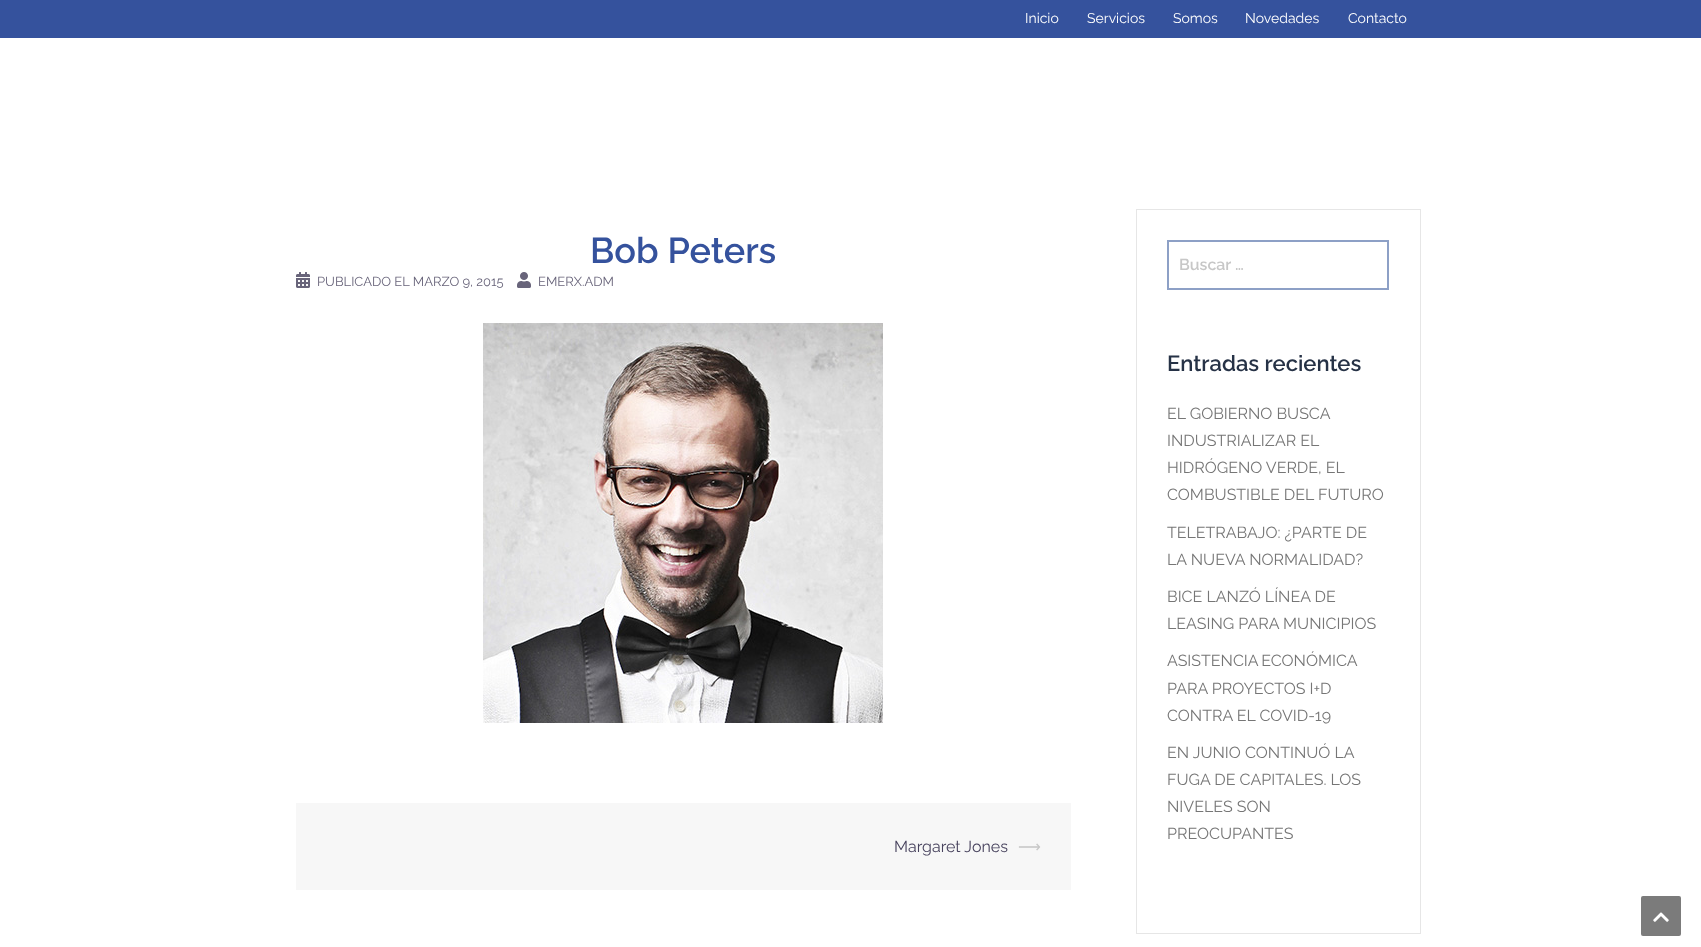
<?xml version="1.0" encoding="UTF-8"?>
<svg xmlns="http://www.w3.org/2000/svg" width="1701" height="947">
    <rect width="100%" height="100%" fill="#FFFFFF"/>
    <rect x="0" y="0" width="1701" height="38" fill="#35529D"/>
    <text x="1025" y="23" font-family="Raleway" font-size="14" fill="#FFFFFF">Inicio</text>
    <text x="1087" y="23" font-family="Raleway" font-size="14" fill="#FFFFFF">Servicios</text>
    <text x="1173" y="23" font-family="Raleway" font-size="14" fill="#FFFFFF">Somos</text>
    <text x="1245" y="23" font-family="Raleway" font-size="14" fill="#FFFFFF">Novedades</text>
    <text x="1348" y="23" font-family="Raleway" font-size="14" fill="#FFFFFF">Contacto</text>
    <text x="590" y="263" font-family="Raleway" font-size="36" font-weight="600" fill="#35529D">Bob Peters</text>
    <image x="296" y="272" width="14" height="16" href="img_01.png"/>
    <text x="317" y="286" font-family="Raleway" font-size="13" fill="#68647A">PUBLICADO EL MARZO 9, 2015</text>
    <image x="517" y="272" width="14" height="16" href="img_02.png"/>
    <text x="538" y="286" font-family="Raleway" font-size="13" fill="#68647A">EMERX.ADM</text>
    <image x="483" y="323" width="400" height="400" href="img_03.png"/>
    <rect x="296" y="803" width="775" height="87" fill="#F7F7F7"/>
    <text x="894" y="852" font-family="Raleway" font-size="16" fill="#47425D">Margaret Jones</text>
    <text x="1018" y="852" font-family="DejaVu Sans" font-size="16" fill="#C7C7C7">⟶</text>
    <rect x="1136.5" y="209.5" width="284" height="724" fill="none" stroke="#E6E6E6"/>
    <rect x="1168" y="241" width="220" height="48" fill="none" stroke="#8DA0C6" stroke-width="2"/>
    <text x="1179" y="270" font-family="Raleway" font-size="16" font-weight="600" fill="#C7C7C7">Buscar …</text>
    <text x="1167" y="371" font-family="Raleway" font-size="22" font-weight="600" fill="#263246">Entradas recientes</text>
    <text font-family="Raleway" font-size="16" fill="#767676">
        <tspan x="1167" y="419">EL GOBIERNO BUSCA</tspan>
        <tspan x="1167" y="446">INDUSTRIALIZAR EL</tspan>
        <tspan x="1167" y="473">HIDRÓGENO VERDE, EL</tspan>
        <tspan x="1167" y="500">COMBUSTIBLE DEL FUTURO</tspan>
    </text>
    <text font-family="Raleway" font-size="16" fill="#767676">
        <tspan x="1167" y="538">TELETRABAJO: ¿PARTE DE</tspan>
        <tspan x="1167" y="565">LA NUEVA NORMALIDAD?</tspan>
    </text>
    <text font-family="Raleway" font-size="16" fill="#767676">
        <tspan x="1167" y="602">BICE LANZÓ LÍNEA DE</tspan>
        <tspan x="1167" y="629">LEASING PARA MUNICIPIOS</tspan>
    </text>
    <text font-family="Raleway" font-size="16" fill="#767676">
        <tspan x="1167" y="666" word-spacing="-1">ASISTENCIA ECONÓMICA</tspan>
        <tspan x="1167" y="694">PARA PROYECTOS I+D</tspan>
        <tspan x="1167" y="721">CONTRA EL COVID-19</tspan>
    </text>
    <text font-family="Raleway" font-size="16" fill="#767676">
        <tspan x="1167" y="758">EN JUNIO CONTINUÓ LA</tspan>
        <tspan x="1167" y="785">FUGA DE CAPITALES. LOS</tspan>
        <tspan x="1167" y="812">NIVELES SON</tspan>
        <tspan x="1167" y="839">PREOCUPANTES</tspan>
    </text>
    <rect x="1641" y="896" width="40" height="40" rx="2" fill="#7B7B7B"/>
    <image x="1653" y="912" width="16" height="10" href="img_04.png"/>
</svg>
